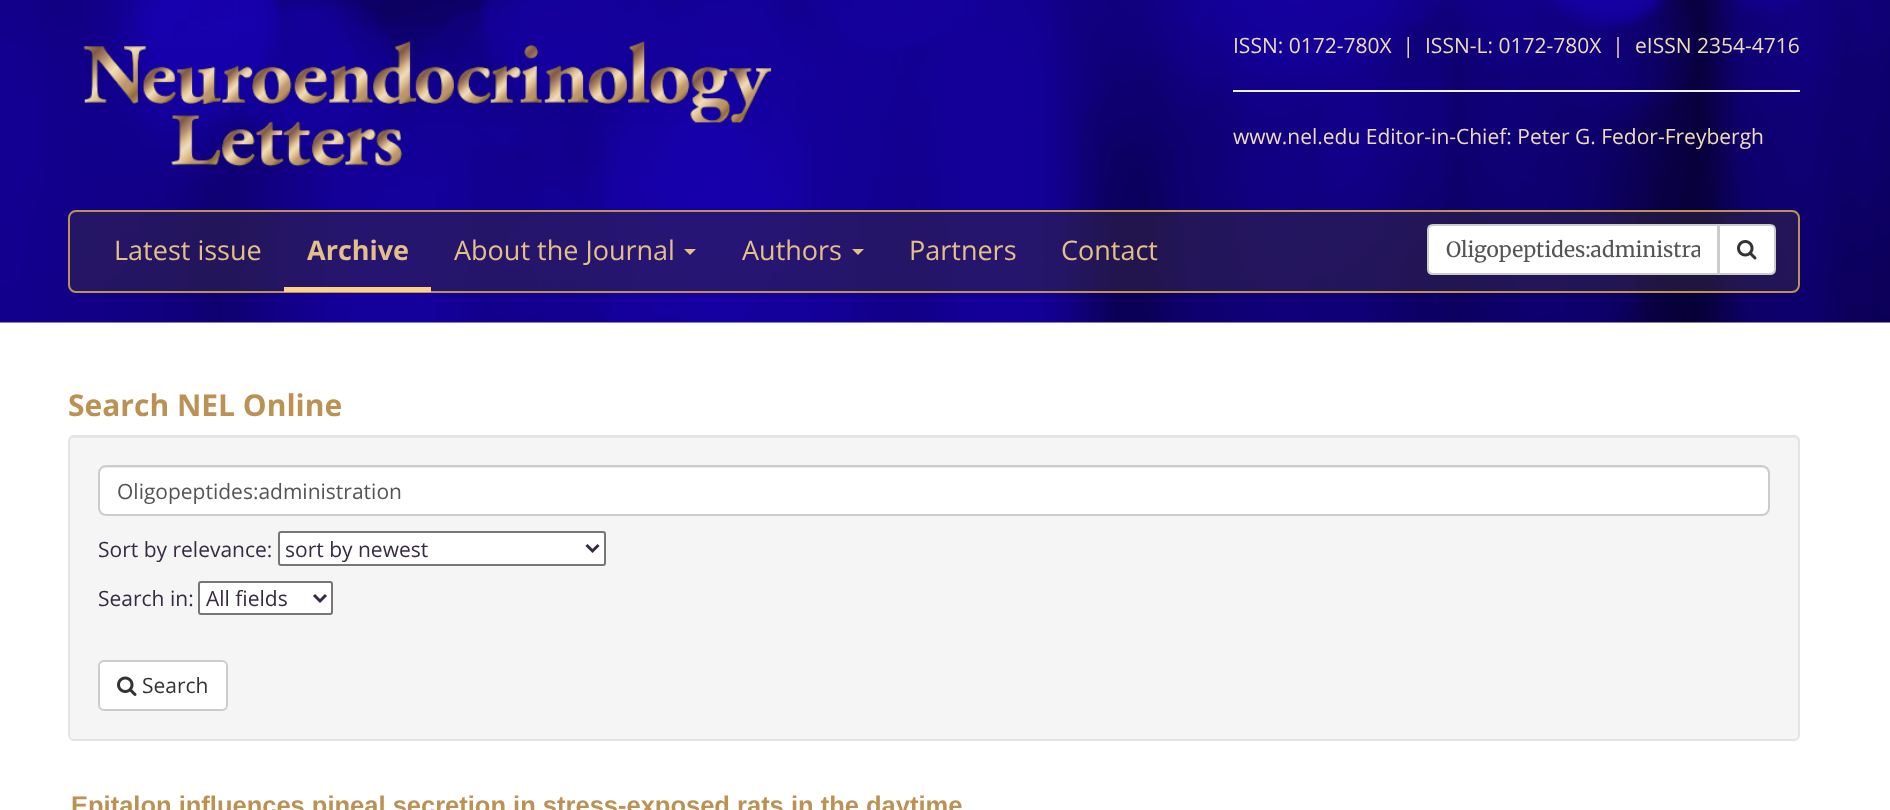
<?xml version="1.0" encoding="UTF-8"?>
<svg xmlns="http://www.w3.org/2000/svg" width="1890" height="810">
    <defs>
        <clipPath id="clip1"><rect x="1446" y="236" width="254" height="27"/></clipPath>
    </defs>
    <rect width="100%" height="100%" fill="#FFFFFF"/>
    <image x="0" y="0" width="1890" height="323" href="img_01.png"/>
    <image x="83" y="41" width="689" height="126" href="img_02.png"/>
    <text x="1233" y="53" font-family="Open Sans" font-size="21" fill="#EFDCBA" xml:space="preserve">ISSN: 0172-780X  |</text>
    <text x="1425" y="53" font-family="Open Sans" font-size="21" fill="#EFDCBA" xml:space="preserve">ISSN-L: 0172-780X  |</text>
    <text x="1635" y="53" font-family="Open Sans" font-size="21" fill="#EFDCBA">eISSN 2354-4716</text>
    <rect x="1233" y="90" width="567" height="2" fill="#EEEEEE"/>
    <text x="1233" y="144" font-family="Open Sans" font-size="21" fill="#EFDCBA">www.nel.edu Editor-in-Chief: Peter G. Fedor-Freybergh</text>
    <rect x="69" y="211" width="1730" height="81" rx="7" fill="#372A42" fill-opacity="0.5" stroke="#BC9254" stroke-width="2"/>
    <text x="114" y="260" font-family="Open Sans" font-size="27" fill="#E4BF88">Latest issue</text>
    <rect x="284" y="287" width="147" height="5" fill="#FAD389"/>
    <text x="307" y="260" font-family="Open Sans" font-size="27" font-weight="700" fill="#E4BF88">Archive</text>
    <text x="454" y="260" font-family="Open Sans" font-size="27" fill="#E4BF88">About the Journal</text>
    <path d="M 684 249 H 696 L 690 255 Z" fill="#E4BF88"/>
    <text x="742" y="260" font-family="Open Sans" font-size="27" fill="#E4BF88">Authors</text>
    <path d="M 852 249 H 864 L 858 255 Z" fill="#E4BF88"/>
    <text x="909" y="260" font-family="Open Sans" font-size="27" fill="#E4BF88">Partners</text>
    <text x="1061" y="260" font-family="Open Sans" font-size="27" fill="#E4BF88">Contact</text>
    <path d="M 1433 225 H 1718 V 274 H 1433 C 1430 274 1428 272 1428 269 V 230 C 1428 227 1430 225 1433 225 Z" fill="#FFFFFF" stroke="#CCCCCC" stroke-width="2"/>
    <g clip-path="url(#clip1)">
        <text x="1446" y="257" font-family="Merriweather" font-size="21" fill="#555555">Oligopeptides:administra</text>
    </g>
    <path d="M 1719 225 H 1770 C 1773 225 1775 227 1775 230 V 269 C 1775 272 1773 274 1770 274 H 1719 Z" fill="#FFFFFF" stroke="#CCCCCC" stroke-width="2"/>
    <image x="1737" y="240" width="20" height="20" href="img_03.png"/>
    <text x="68" y="416" font-family="Open Sans" font-size="30" font-weight="700" fill="#BC9254">Search NEL Online</text>
    <rect x="68" y="435" width="1732" height="306" rx="6" fill="#F5F5F5"/>
    <path d="M 74 438 H 1794 C 1796 438 1798 440 1798 442 V 736 L 1797 739 C 1798 738 1799 736 1799 735 V 442 C 1799 439 1797 437 1794 437 H 74 C 71 437 69 439 69 442 C 69 440 71 438 74 438 Z" fill="#E9E9E9"/>
    <rect x="69" y="436" width="1730" height="304" rx="5" fill="none" stroke="#E3E3E3" stroke-width="2"/>
    <rect x="98" y="465" width="1672" height="51" rx="8" fill="#FFFFFF"/>
    <path d="M 105 468 H 1762 C 1766 468 1768 471 1768 474 V 510 C 1768 511 1768 512 1767 513 C 1768 512 1769 511 1769 509 V 473 C 1769 470 1766 467 1763 467 H 105 C 102 467 99 470 99 473 V 474 C 99 471 102 468 105 468 Z" fill="#ECECEC"/>
    <rect x="99" y="466" width="1670" height="49" rx="7" fill="none" stroke="#CCCCCC" stroke-width="2"/>
    <text x="117" y="499" font-family="Open Sans" font-size="21" fill="#555555">Oligopeptides:administration</text>
    <text x="98" y="557" font-family="Open Sans" font-size="21" fill="#372A42">Sort by relevance:</text>
    <rect x="279" y="532" width="326" height="33" rx="2" fill="#FFFFFF" stroke="#767676" stroke-width="2"/>
    <path d="M 586.5 545 L 592.5 551 L 598.5 545" fill="none" stroke="#372A42" stroke-width="3"/>
    <text x="285" y="557" font-family="Open Sans" font-size="21" fill="#372A42">sort by newest</text>
    <text x="98" y="606" font-family="Open Sans" font-size="21" fill="#372A42">Search in:</text>
    <rect x="199" y="582" width="133" height="32" rx="2" fill="#FFFFFF" stroke="#767676" stroke-width="2"/>
    <path d="M 314 595 L 320 601 L 326 595" fill="none" stroke="#372A42" stroke-width="3"/>
    <text x="206" y="606" font-family="Open Sans" font-size="21" fill="#372A42">All fields</text>
    <rect x="99" y="661" width="128" height="49" rx="5" fill="#FFFFFF" stroke="#CCCCCC" stroke-width="2"/>
    <image x="117" y="676" width="20" height="20" href="img_04.png"/>
    <text x="142" y="693" font-family="Open Sans" font-size="21" fill="#333333">Search</text>
    <text x="71" y="814" font-family="Liberation Sans" font-size="25.5" font-weight="700" fill="#BC9254">Epitalon influences pineal secretion in stress-exposed rats in the daytime</text>
</svg>
